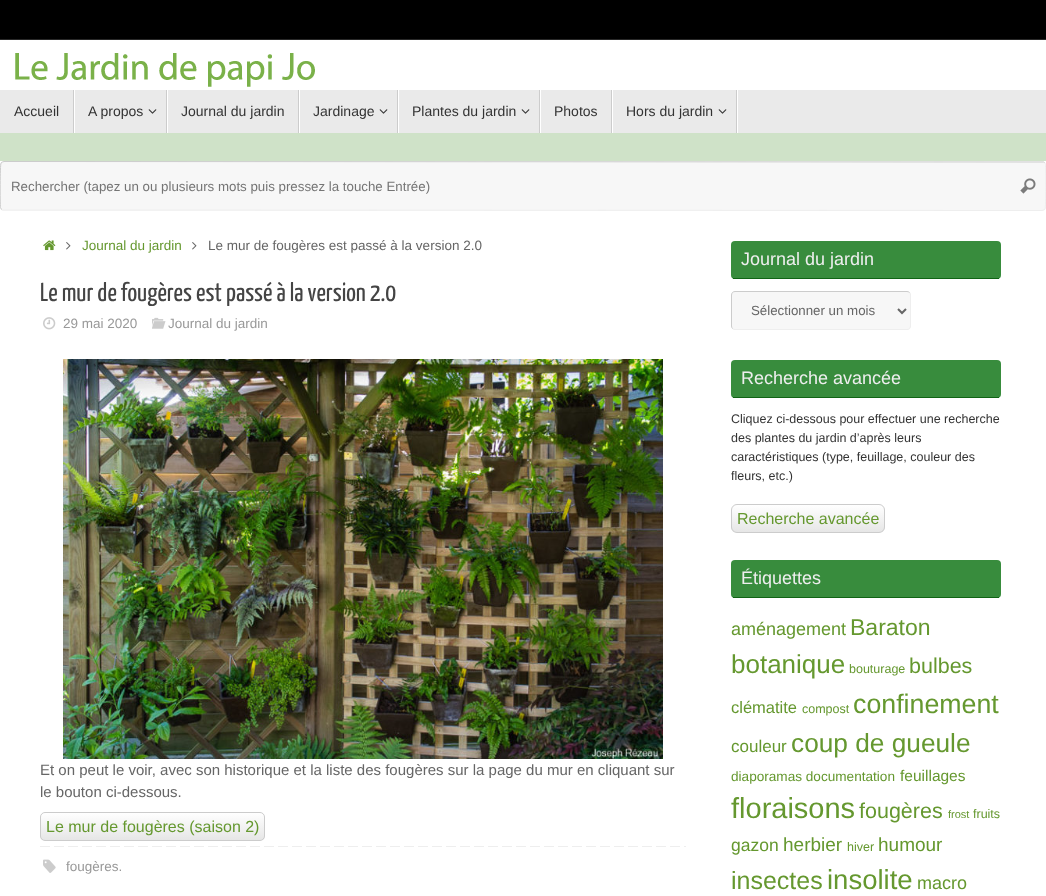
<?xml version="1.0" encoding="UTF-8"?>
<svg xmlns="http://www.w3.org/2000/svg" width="1046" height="896">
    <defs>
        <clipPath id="clip1"><rect x="40" y="812" width="225" height="29" rx="5"/></clipPath>
        <linearGradient id="g1" gradientUnits="userSpaceOnUse" x1="153" y1="813" x2="153" y2="840"><stop offset="0" stop-color="#FFFFFF"/><stop offset="1" stop-color="#E6E6E6"/></linearGradient>
        <clipPath id="clip2"><rect x="731" y="504" width="154" height="29" rx="6"/></clipPath>
        <linearGradient id="g2" gradientUnits="userSpaceOnUse" x1="808" y1="505" x2="808" y2="532"><stop offset="0" stop-color="#FFFFFF"/><stop offset="1" stop-color="#E6E6E6"/></linearGradient>
    </defs>
    <rect width="100%" height="100%" fill="#CFE2C8"/>
    <rect x="0" y="0" width="1046" height="39" fill="#000000"/>
    <rect x="0" y="39" width="1046" height="1" fill="#282828"/>
    <rect x="0" y="40" width="1046" height="50" fill="#FFFFFF"/>
    <image x="15" y="53" width="300" height="34" href="img_01.png"/>
    <rect x="0" y="90" width="1046" height="43" fill="#EAEAEA"/>
    <rect x="74" y="90" width="1" height="43" fill="#FFFFFF"/>
    <rect x="73" y="90" width="1" height="43" fill="#CCCCCC"/>
    <text x="14" y="116" font-family="Liberation Sans" font-size="14" fill="#333333">Accueil</text>
    <rect x="167" y="90" width="1" height="43" fill="#FFFFFF"/>
    <rect x="166" y="90" width="1" height="43" fill="#CCCCCC"/>
    <text x="88" y="116" font-family="Liberation Sans" font-size="14" fill="#333333">A propos</text>
    <image x="148" y="109" width="9" height="5" href="img_02.png"/>
    <rect x="299" y="90" width="1" height="43" fill="#FFFFFF"/>
    <rect x="298" y="90" width="1" height="43" fill="#CCCCCC"/>
    <text x="181" y="116" font-family="Liberation Sans" font-size="14" fill="#333333">Journal du jardin</text>
    <rect x="398" y="90" width="1" height="43" fill="#FFFFFF"/>
    <rect x="397" y="90" width="1" height="43" fill="#CCCCCC"/>
    <text x="313" y="116" font-family="Liberation Sans" font-size="14" fill="#333333">Jardinage</text>
    <image x="379" y="109" width="9" height="5" href="img_02.png"/>
    <rect x="540" y="90" width="1" height="43" fill="#FFFFFF"/>
    <rect x="539" y="90" width="1" height="43" fill="#CCCCCC"/>
    <text x="412" y="116" font-family="Liberation Sans" font-size="14" fill="#333333">Plantes du jardin</text>
    <image x="521" y="109" width="9" height="5" href="img_02.png"/>
    <rect x="612" y="90" width="1" height="43" fill="#FFFFFF"/>
    <rect x="611" y="90" width="1" height="43" fill="#CCCCCC"/>
    <text x="554" y="116" font-family="Liberation Sans" font-size="14" fill="#333333">Photos</text>
    <rect x="737" y="90" width="1" height="43" fill="#FFFFFF"/>
    <rect x="736" y="90" width="1" height="43" fill="#CCCCCC"/>
    <text x="626" y="116" font-family="Liberation Sans" font-size="14" fill="#333333">Hors du jardin</text>
    <image x="718" y="109" width="9" height="5" href="img_02.png"/>
    <rect x="0" y="161" width="1046" height="735" fill="#FFFFFF"/>
    <rect x="0" y="161" width="1046" height="50" rx="4" fill="#F7F7F7"/>
    <path d="M 1044.5 162.5 L 1045.5 164.5 C 1046 169 1046 207 1045 209 L 1043.5 210 L 1042 210.5 L 2.5 210 L 1.5 209.5" fill="none" stroke="#EEEEEE"/>
    <path d="M 1.5 209.5 L 0.5 207.5 C 0 203 0 165 1 163 L 2.5 162 L 4 161.5 L 1043.5 162 L 1044.5 162.5" fill="none" stroke="#CCCCCC"/>
    <text x="11" y="191" font-family="Liberation Sans" font-size="13.3" fill="#757575">Rechercher (tapez un ou plusieurs mots puis pressez la touche Entrée)</text>
    <image x="1020" y="178" width="16" height="16" href="img_03.png"/>
    <image x="43" y="240" width="13" height="11" href="img_04.png"/>
    <image x="66" y="242" width="5" height="8" href="img_05.png"/>
    <text x="82" y="250" font-family="Liberation Sans" font-size="13.5" fill="#65982F">Journal du jardin</text>
    <image x="192" y="242" width="5" height="8" href="img_05.png"/>
    <text x="208" y="250" font-family="Liberation Sans" font-size="13.5" fill="#666666">Le mur de fougères est passé à la version 2.0</text>
    <text x="40" y="301" font-family="Yanone Kaffeesatz" font-size="26" fill="#444444">Le mur de fougères est passé à la version 2.0</text>
    <image x="43" y="317" width="13" height="13" href="img_06.png"/>
    <text x="63" y="328" font-family="Liberation Sans" font-size="13.5" fill="#999999">29 mai 2020</text>
    <image x="152" y="317" width="14" height="12" href="img_07.png"/>
    <text x="168" y="328" font-family="Liberation Sans" font-size="13.5" fill="#999999">Journal du jardin</text>
    <image x="63" y="359" width="600" height="400" href="img_08.png"/>
    <text font-family="Liberation Sans" font-size="15" fill="#666666">
        <tspan x="40" y="775">Et on peut le voir, avec son historique et la liste des fougères sur la page du mur en cliquant sur</tspan>
        <tspan x="40" y="797">le bouton ci-dessous.</tspan>
    </text>
    <g clip-path="url(#clip1)">
        <rect x="40" y="813" width="225" height="27" fill="url(#g1)"/>
    </g>
    <rect x="40.5" y="812.5" width="224" height="28" rx="4.5" fill="none" stroke="#CCCCCC"/>
    <text x="46" y="832" font-family="Liberation Sans" font-size="16" fill="#65982F">Le mur de fougères (saison 2)</text>
    <image x="40" y="846" width="646" height="1" href="img_09.png"/>
    <image x="43" y="859" width="13" height="14" href="img_10.png"/>
    <text x="66" y="871" font-family="Liberation Sans" font-size="13.5" fill="#999999">fougères.</text>
    <rect x="731" y="241" width="270" height="38" rx="4" fill="#388C3D"/>
    <rect x="733" y="278" width="266" height="1" fill="#106415"/>
    <text x="741" y="265" font-family="Liberation Sans" font-size="18" fill="#EEEEEE">Journal du jardin</text>
    <rect x="731" y="291" width="180" height="39" rx="4" fill="#F7F7F7"/>
    <path d="M 909.5 292.5 C 910 293 910.5 294 910.5 295 V 326 C 910.5 327 910 328 909.5 328.5 C 909 329 908 329.5 907 329.5 H 735 C 734 329.5 733 329 732.5 328.5" fill="none" stroke="#EEEEEE"/>
    <path d="M 732.5 328.5 C 732 328 731.5 327 731.5 326 V 295 C 731.5 294 732 293 732.5 292.5 C 733 292 734 291.5 735 291.5 H 907 C 908 291.5 909 292 909.5 292.5" fill="none" stroke="#CCCCCC"/>
    <path d="M 898 309 L 902 313 L 906 309" fill="none" stroke="#666666" stroke-width="2"/>
    <text x="751" y="315" font-family="Liberation Sans" font-size="13.3" fill="#666666">Sélectionner un mois</text>
    <rect x="731" y="360" width="270" height="38" rx="4" fill="#388C3D"/>
    <rect x="733" y="397" width="266" height="1" fill="#106415"/>
    <text x="741" y="384" font-family="Liberation Sans" font-size="18" fill="#EEEEEE">Recherche avancée</text>
    <text font-family="Liberation Sans" font-size="12.5" fill="#333333">
        <tspan x="731" y="423">Cliquez ci-dessous pour effectuer une recherche</tspan>
        <tspan x="731" y="442">des plantes du jardin d’après leurs</tspan>
        <tspan x="731" y="461">caractéristiques (type, feuillage, couleur des</tspan>
        <tspan x="731" y="480">fleurs, etc.)</tspan>
    </text>
    <g clip-path="url(#clip2)">
        <rect x="731" y="505" width="154" height="27" fill="url(#g2)"/>
    </g>
    <rect x="731.5" y="504.5" width="153" height="28" rx="5.5" fill="none" stroke="#CCCCCC"/>
    <text x="737" y="524" font-family="Liberation Sans" font-size="16" fill="#65982F">Recherche avancée</text>
    <rect x="731" y="560" width="270" height="38" rx="4" fill="#388C3D"/>
    <rect x="733" y="597" width="266" height="1" fill="#106415"/>
    <text x="741" y="584" font-family="Liberation Sans" font-size="18" fill="#EEEEEE">Étiquettes</text>
    <text x="731" y="635" font-family="Liberation Sans" font-size="18" fill="#65982F">aménagement</text>
    <text x="850" y="635" font-family="Liberation Sans" font-size="23" fill="#65982F">Baraton</text>
    <text x="731" y="673" font-family="Liberation Sans" font-size="26" fill="#65982F">botanique</text>
    <text x="849" y="673" font-family="Liberation Sans" font-size="12.5" fill="#65982F">bouturage</text>
    <text x="909" y="673" font-family="Liberation Sans" font-size="21.5" fill="#65982F">bulbes</text>
    <text x="731" y="713" font-family="Liberation Sans" font-size="16.5" fill="#65982F">clématite</text>
    <text x="802" y="713" font-family="Liberation Sans" font-size="12.5" fill="#65982F">compost</text>
    <text x="853" y="713" font-family="Liberation Sans" font-size="26.75" fill="#65982F">confinement</text>
    <text x="731" y="752" font-family="Liberation Sans" font-size="17" fill="#65982F">couleur</text>
    <text x="791" y="752" font-family="Liberation Sans" font-size="26.25" fill="#65982F">coup de gueule</text>
    <text x="731" y="781" font-family="Liberation Sans" font-size="13.6" fill="#65982F">diaporamas documentation</text>
    <text x="900" y="781" font-family="Liberation Sans" font-size="15.5" fill="#65982F">feuillages</text>
    <text x="731" y="818" font-family="Liberation Sans" font-size="29" fill="#65982F">floraisons</text>
    <text x="859" y="818" font-family="Liberation Sans" font-size="21.5" fill="#65982F">fougères</text>
    <text x="948" y="818" font-family="Liberation Sans" font-size="11" fill="#65982F">frost</text>
    <text x="973" y="818" font-family="Liberation Sans" font-size="12.5" fill="#65982F">fruits</text>
    <text x="731" y="851" font-family="Liberation Sans" font-size="17.5" fill="#65982F">gazon</text>
    <text x="783" y="851" font-family="Liberation Sans" font-size="19" fill="#65982F">herbier</text>
    <text x="847" y="851" font-family="Liberation Sans" font-size="12.5" fill="#65982F">hiver</text>
    <text x="878" y="851" font-family="Liberation Sans" font-size="19" fill="#65982F">humour</text>
    <text x="731" y="889" font-family="Liberation Sans" font-size="25" fill="#65982F">insectes</text>
    <text x="827" y="889" font-family="Liberation Sans" font-size="27.5" fill="#65982F">insolite</text>
    <text x="917" y="889" font-family="Liberation Sans" font-size="18" fill="#65982F">macro</text>
</svg>
